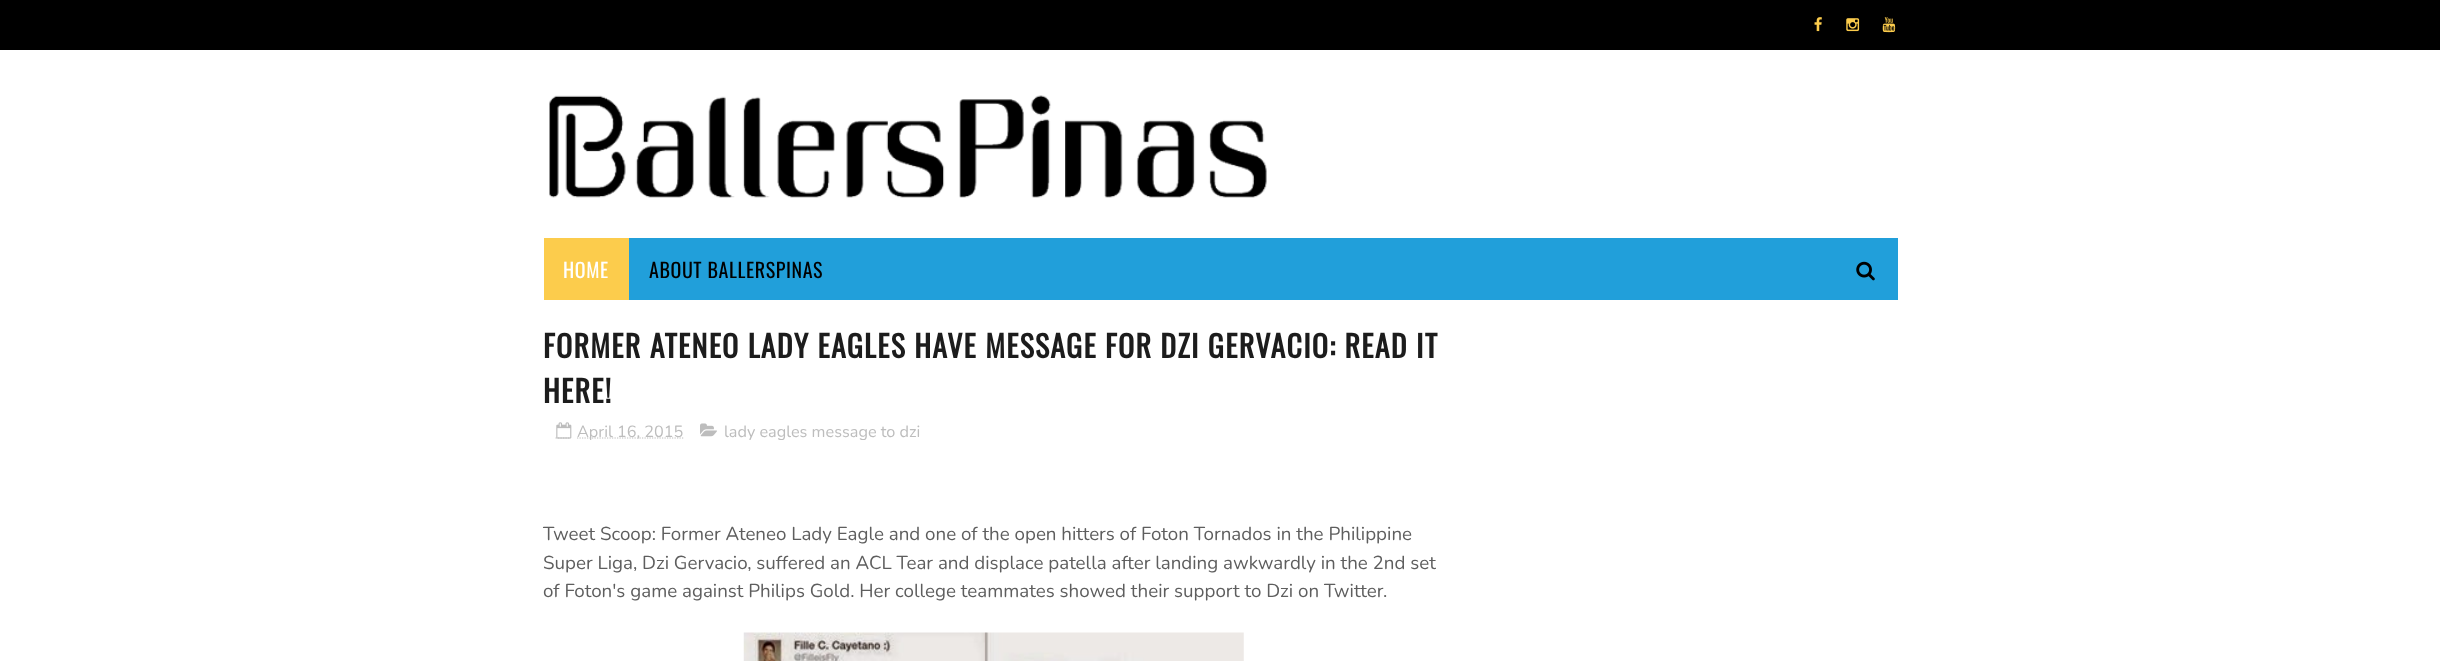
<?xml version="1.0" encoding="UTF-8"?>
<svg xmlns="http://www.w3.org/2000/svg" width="2440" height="661">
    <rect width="100%" height="100%" fill="#FFFFFF"/>
    <rect x="0" y="0" width="2440" height="50" fill="#000000"/>
    <image x="1814" y="17" width="8" height="15" href="img_01.png"/>
    <image x="1846" y="18" width="14" height="14" href="img_02.png"/>
    <image x="1882" y="17" width="14" height="16" href="img_03.png"/>
    <image x="549" y="95" width="718" height="103" href="img_04.png"/>
    <rect x="629" y="238" width="1269" height="62" fill="#219FDA"/>
    <rect x="544" y="238" width="85" height="62" fill="#FCCC4C"/>
    <text x="563" y="278" font-family="Oswald" font-size="20" letter-spacing="0.6" fill="#FFFFFF">HOME</text>
    <text x="649" y="278" font-family="Oswald" font-size="20" letter-spacing="0.6" fill="#000000">ABOUT BALLERSPINAS</text>
    <image x="1856" y="261" width="19" height="20" href="img_05.png"/>
    <text font-family="Oswald" font-size="30" font-weight="700" letter-spacing="1.25" fill="#1C1C1C">
        <tspan x="543" y="358">FORMER ATENEO LADY EAGLES HAVE MESSAGE FOR DZI GERVACIO: READ IT</tspan>
        <tspan x="543" y="403">HERE!</tspan>
    </text>
    <path d="M 555.5 438 H 570.5" fill="none" stroke="#BDBDBD" stroke-width="1.2" stroke-dasharray="1.25 1.25"/>
    <image x="556" y="422" width="16" height="17" href="img_06.png"/>
    <path d="M 577 438 H 683.5" fill="none" stroke="#BDBDBD" stroke-width="1.2" stroke-dasharray="1.25 1.25"/>
    <text x="577" y="437" font-family="Nunito" font-size="16.25" fill="#BDBDBD">April 16, 2015</text>
    <image x="700" y="423" width="17" height="14" href="img_07.png"/>
    <text x="724" y="437" font-family="Nunito" font-size="16.25" fill="#BDBDBD">lady eagles message to dzi</text>
    <text font-family="Nunito" font-size="18.75" fill="#5E5E5E">
        <tspan x="543" y="540">Tweet Scoop: Former Ateneo Lady Eagle and one of the open hitters of Foton Tornados in the Philippine</tspan>
        <tspan x="543" y="569">Super Liga, Dzi Gervacio, suffered an ACL Tear and displace patella after landing awkwardly in the 2nd set</tspan>
        <tspan x="543" y="597">of Foton's game against Philips Gold. Her college teammates showed their support to Dzi on Twitter.</tspan>
    </text>
    <image x="743" y="632" width="501" height="29" href="img_08.png"/>
</svg>
